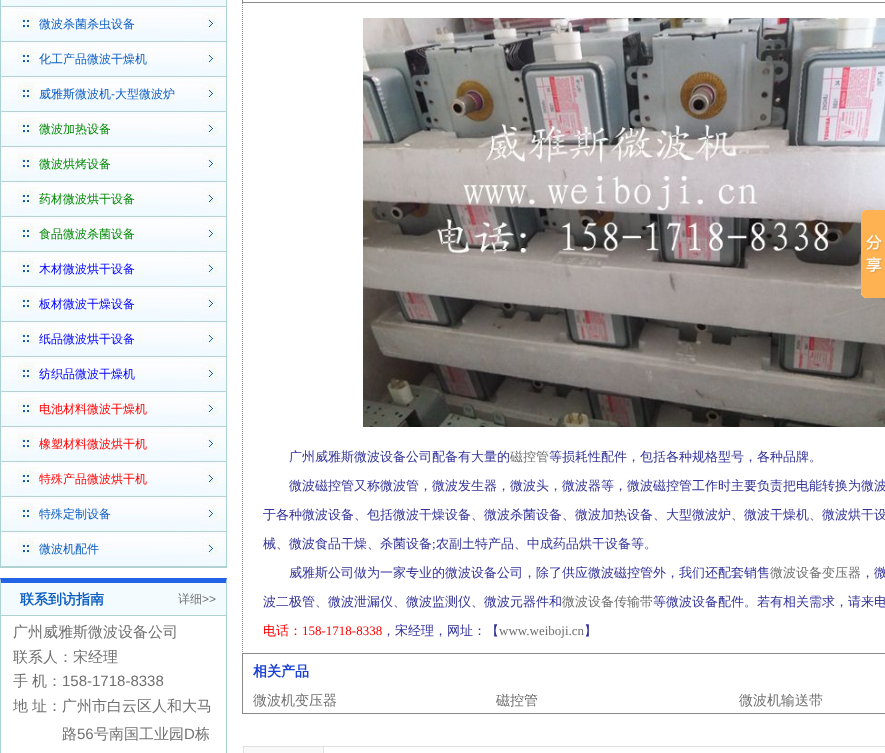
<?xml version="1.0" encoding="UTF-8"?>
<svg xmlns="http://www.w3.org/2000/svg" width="885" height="753">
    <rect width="100%" height="100%" fill="#FFFFFF"/>
    <path d="M 227 -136 V 568 L 226 567 V -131 Z" fill="#ABD3D2"/>
    <rect x="0" y="567" width="227" height="1" fill="#ABD3D2"/>
    <path d="M 0 568 V -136 L 1 -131 V 567 Z" fill="#ABD3D2"/>
    <image x="1" y="0" width="225" height="7" href="img_01.png"/>
    <image x="1" y="7" width="225" height="35" href="img_02.png"/>
    <text x="39" y="28" font-family="WenQuanYi Zen Hei" font-size="12" font-weight="500" fill="#0B5DC3">微波杀菌杀虫设备</text>
    <image x="1" y="42" width="225" height="35" href="img_02.png"/>
    <text x="39" y="63" font-family="WenQuanYi Zen Hei" font-size="12" font-weight="500" fill="#0B5DC3">化工产品微波干燥机</text>
    <image x="1" y="77" width="225" height="35" href="img_02.png"/>
    <text x="39" y="98" font-family="WenQuanYi Zen Hei" font-size="12" font-weight="500" fill="#0B5DC3">威雅斯微波机</text>
    <text x="111" y="98" font-family="Liberation Sans" font-size="12" fill="#0B5DC3">-</text>
    <text x="115" y="98" font-family="WenQuanYi Zen Hei" font-size="12" font-weight="500" fill="#0B5DC3">大型微波炉</text>
    <image x="1" y="112" width="225" height="35" href="img_02.png"/>
    <text x="39" y="133" font-family="WenQuanYi Zen Hei" font-size="12" font-weight="500" fill="#008800">微波加热设备</text>
    <image x="1" y="147" width="225" height="35" href="img_02.png"/>
    <text x="39" y="168" font-family="WenQuanYi Zen Hei" font-size="12" font-weight="500" fill="#008800">微波烘烤设备</text>
    <image x="1" y="182" width="225" height="35" href="img_02.png"/>
    <text x="39" y="203" font-family="WenQuanYi Zen Hei" font-size="12" font-weight="500" fill="#008800">药材微波烘干设备</text>
    <image x="1" y="217" width="225" height="35" href="img_02.png"/>
    <text x="39" y="238" font-family="WenQuanYi Zen Hei" font-size="12" font-weight="500" fill="#008800">食品微波杀菌设备</text>
    <image x="1" y="252" width="225" height="35" href="img_02.png"/>
    <text x="39" y="273" font-family="WenQuanYi Zen Hei" font-size="12" font-weight="500" fill="#0000FF">木材微波烘干设备</text>
    <image x="1" y="287" width="225" height="35" href="img_02.png"/>
    <text x="39" y="308" font-family="WenQuanYi Zen Hei" font-size="12" font-weight="500" fill="#0000FF">板材微波干燥设备</text>
    <image x="1" y="322" width="225" height="35" href="img_02.png"/>
    <text x="39" y="343" font-family="WenQuanYi Zen Hei" font-size="12" font-weight="500" fill="#0000FF">纸品微波烘干设备</text>
    <image x="1" y="357" width="225" height="35" href="img_02.png"/>
    <text x="39" y="378" font-family="WenQuanYi Zen Hei" font-size="12" font-weight="500" fill="#0000FF">纺织品微波干燥机</text>
    <image x="1" y="392" width="225" height="35" href="img_02.png"/>
    <text x="39" y="413" font-family="WenQuanYi Zen Hei" font-size="12" font-weight="500" fill="#FF0000">电池材料微波干燥机</text>
    <image x="1" y="427" width="225" height="35" href="img_02.png"/>
    <text x="39" y="448" font-family="WenQuanYi Zen Hei" font-size="12" font-weight="500" fill="#FF0000">橡塑材料微波烘干机</text>
    <image x="1" y="462" width="225" height="35" href="img_02.png"/>
    <text x="39" y="483" font-family="WenQuanYi Zen Hei" font-size="12" font-weight="500" fill="#FF0000">特殊产品微波烘干机</text>
    <image x="1" y="497" width="225" height="35" href="img_02.png"/>
    <text x="39" y="518" font-family="WenQuanYi Zen Hei" font-size="12" font-weight="500" fill="#0B5DC3">特殊定制设备</text>
    <image x="1" y="532" width="225" height="35" href="img_02.png"/>
    <text x="39" y="553" font-family="WenQuanYi Zen Hei" font-size="12" font-weight="500" fill="#0B5DC3">微波机配件</text>
    <path d="M 0 578 H 227 L 226 583 H 1 Z" fill="#2364E6"/>
    <path d="M 227 578 V 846 L 226 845 V 583 Z" fill="#ABD3D2"/>
    <path d="M 0 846 V 578 L 1 583 V 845 Z" fill="#ABD3D2"/>
    <rect x="1" y="583" width="225" height="32" fill="#F3FBFE"/>
    <rect x="1" y="615" width="225" height="1" fill="#ABD3D2"/>
    <text x="20" y="604" font-family="WenQuanYi Zen Hei" font-size="14" font-weight="700" fill="#0B5DC3">联系到访指南</text>
    <text x="178" y="603" font-family="WenQuanYi Zen Hei" font-size="12" font-weight="500" fill="#707070">详细</text>
    <text x="202" y="603" font-family="Liberation Sans" font-size="12" fill="#707070">&gt;&gt;</text>
    <text font-family="WenQuanYi Zen Hei" font-size="15" font-weight="500" fill="#707070">
        <tspan x="13" y="637">广州威雅斯微波设备公司</tspan>
        <tspan x="13" y="662">联系人：宋经理</tspan>
        <tspan x="13" y="686">手</tspan>
    </text>
    <text x="32" y="686" font-family="WenQuanYi Zen Hei" font-size="15" font-weight="500" fill="#707070">机：</text>
    <text x="62" y="686" font-family="Liberation Sans" font-size="15" fill="#707070">158-1718-8338</text>
    <text x="13" y="711" font-family="WenQuanYi Zen Hei" font-size="15" font-weight="500" fill="#707070">地</text>
    <text x="32" y="711" font-family="WenQuanYi Zen Hei" font-size="15" font-weight="500" fill="#707070">址：广州市白云区人和大马</text>
    <text x="62" y="739" font-family="WenQuanYi Zen Hei" font-size="15" font-weight="500" fill="#707070">路</text>
    <text x="77" y="739" font-family="Liberation Sans" font-size="15" fill="#707070">56</text>
    <text x="94" y="739" font-family="WenQuanYi Zen Hei" font-size="15" font-weight="500" fill="#707070">号南国工业园</text>
    <text x="184" y="739" font-family="Liberation Sans" font-size="15" fill="#707070">D</text>
    <text x="195" y="739" font-family="WenQuanYi Zen Hei" font-size="15" font-weight="500" fill="#707070">栋</text>
    <rect x="242.5" y="-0.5" width="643" height="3" fill="none" stroke="#898989"/>
    <path d="M 242.5 3 V 653" fill="none" stroke="#898989" stroke-dasharray="1 1"/>
    <image x="363" y="18" width="522" height="409" href="img_03.png"/>
    <text x="289" y="461" font-family="WenQuanYi Zen Hei" font-size="13" font-weight="500" fill="#333399">广州威雅斯微波设备公司配备有大量的</text>
    <text x="510" y="461" font-family="WenQuanYi Zen Hei" font-size="13" font-weight="500" fill="#707070">磁控管</text>
    <text x="549" y="461" font-family="WenQuanYi Zen Hei" font-size="13" font-weight="500" fill="#333399">等损耗性配件，包括各种规格型号，各种品牌。</text>
    <text x="289" y="490" font-family="WenQuanYi Zen Hei" font-size="13" font-weight="500" fill="#333399">微波磁控管又称微波管，微波发生器，微波头，微波器等，微波磁控管工作时主要负责把电能转换为微波</text>
    <text x="263" y="519" font-family="WenQuanYi Zen Hei" font-size="13" font-weight="500" fill="#333399">于各种微波设备、包括微波干燥设备、微波杀菌设备、微波加热设备、大型微波炉、微波干燥机、微波烘干设</text>
    <text x="263" y="548" font-family="WenQuanYi Zen Hei" font-size="13" font-weight="500" fill="#333399">械、微波食品干燥、杀菌设备 农副土特产品、中成药品烘干设备等。</text>
    <text x="432" y="548" font-family="Liberation Serif" font-size="13" fill="#333399">;</text>
    <text x="289" y="577" font-family="WenQuanYi Zen Hei" font-size="13" font-weight="500" fill="#333399">威雅斯公司做为一家专业的微波设备公司，除了供应微波磁控管外，我们还配套销售</text>
    <text x="770" y="577" font-family="WenQuanYi Zen Hei" font-size="13" font-weight="500" fill="#707070">微波设备变压器</text>
    <text x="861" y="577" font-family="WenQuanYi Zen Hei" font-size="13" font-weight="500" fill="#333399">，微</text>
    <text x="263" y="606" font-family="WenQuanYi Zen Hei" font-size="13" font-weight="500" fill="#333399">波二极管、微波泄漏仪、微波监测仪、微波元器件和</text>
    <text x="562" y="606" font-family="WenQuanYi Zen Hei" font-size="13" font-weight="500" fill="#707070">微波设备传输带</text>
    <text x="653" y="606" font-family="WenQuanYi Zen Hei" font-size="13" font-weight="500" fill="#333399">等微波设备配件。若有相关需求，请来电</text>
    <text x="263" y="635" font-family="WenQuanYi Zen Hei" font-size="13" font-weight="500" fill="#FF0000">电话：</text>
    <text x="302" y="635" font-family="Liberation Serif" font-size="13" fill="#FF0000">158-1718-8338</text>
    <text x="382" y="635" font-family="WenQuanYi Zen Hei" font-size="13" font-weight="500" fill="#333399">，宋经理，网址：【</text>
    <text x="499" y="635" font-family="Liberation Serif" font-size="13" fill="#707070">www.weiboji.cn</text>
    <text x="584" y="635" font-family="WenQuanYi Zen Hei" font-size="13" font-weight="500" fill="#333399">】</text>
    <rect x="242.5" y="653.5" width="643" height="60" fill="none" stroke="#898989"/>
    <text x="253" y="676" font-family="WenQuanYi Zen Hei" font-size="14" font-weight="700" fill="#1840D3">相关产品</text>
    <text x="253" y="705" font-family="WenQuanYi Zen Hei" font-size="14" font-weight="500" fill="#707070">微波机变压器</text>
    <text x="496" y="705" font-family="WenQuanYi Zen Hei" font-size="14" font-weight="500" fill="#707070">磁控管</text>
    <text x="739" y="705" font-family="WenQuanYi Zen Hei" font-size="14" font-weight="500" fill="#707070">微波机输送带</text>
    <rect x="243.5" y="746.5" width="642" height="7" fill="none" stroke="#E0E0E0"/>
    <rect x="244" y="747" width="80" height="6" fill="#F9F9F9"/>
    <rect x="323" y="747" width="1" height="6" fill="#E0E0E0"/>
    <image x="861" y="210" width="24" height="88" href="img_04.png"/>
</svg>
